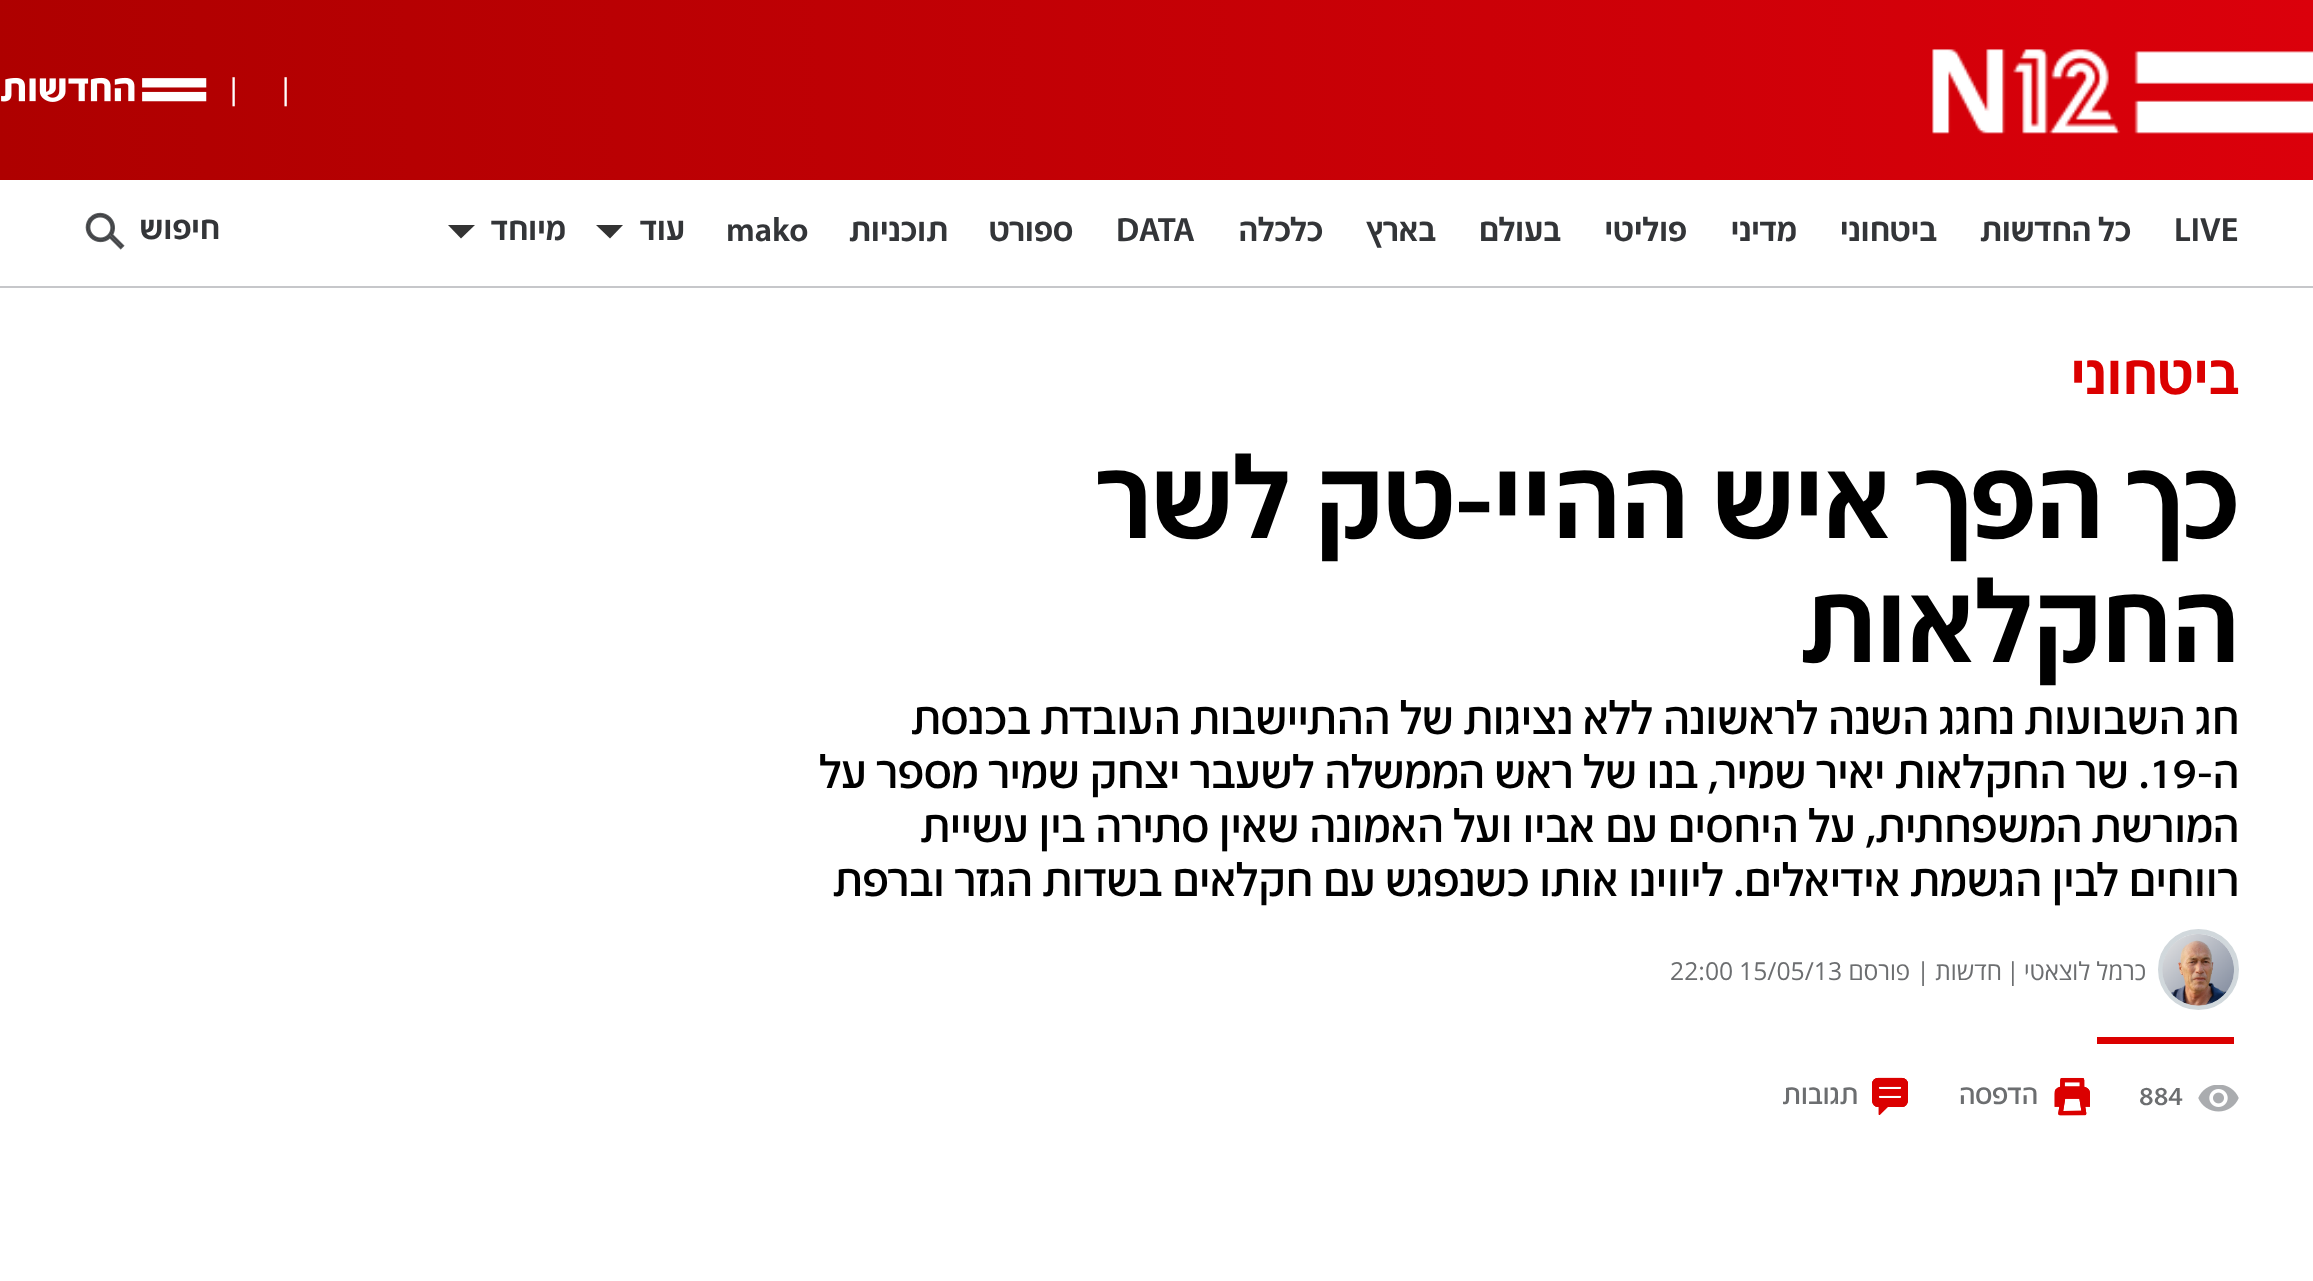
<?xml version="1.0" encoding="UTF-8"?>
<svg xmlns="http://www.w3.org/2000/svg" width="2313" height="1281">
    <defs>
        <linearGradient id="g1" gradientUnits="userSpaceOnUse" x1="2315" y1="50" x2="-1.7" y2="130"><stop offset="0" stop-color="#DB000B"/><stop offset="1" stop-color="#AE0000"/></linearGradient>
    </defs>
    <rect width="100%" height="100%" fill="#FFFFFF"/>
    <rect x="0" y="0" width="2313" height="180" fill="url(#g1)"/>
    <image x="1932" y="49" width="381" height="85" href="img_01.png"/>
    <text x="282" y="99" font-family="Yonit" font-size="29" fill="#FFFFFF">|</text>
    <text x="230" y="99" font-family="Yonit" font-size="29" fill="#FFFFFF">|</text>
    <image x="1" y="77" width="206" height="25" href="img_02.png"/>
    <rect x="0" y="286" width="2313" height="2" fill="#C6C7CA"/>
    <text x="2174" y="241" font-family="Yonit" font-size="33.75" font-weight="500" fill="#333538">LIVE</text>
    <text x="2131" y="241" font-family="Yonit" font-size="33.75" font-weight="500" direction="rtl" fill="#333538">כל החדשות</text>
    <text x="1937" y="241" font-family="Yonit" font-size="33.75" font-weight="500" direction="rtl" fill="#333538">ביטחוני</text>
    <text x="1797" y="241" font-family="Yonit" font-size="33.75" font-weight="500" direction="rtl" fill="#333538">מדיני</text>
    <text x="1687" y="241" font-family="Yonit" font-size="33.75" font-weight="500" direction="rtl" fill="#333538">פוליטי</text>
    <text x="1561" y="241" font-family="Yonit" font-size="33.75" font-weight="500" direction="rtl" fill="#333538">בעולם</text>
    <text x="1436" y="241" font-family="Yonit" font-size="33.75" font-weight="500" direction="rtl" fill="#333538">בארץ</text>
    <text x="1323" y="241" font-family="Yonit" font-size="33.75" font-weight="500" direction="rtl" fill="#333538">כלכלה</text>
    <text x="1116" y="241" font-family="Yonit" font-size="33.75" font-weight="500" fill="#333538">DATA</text>
    <text x="1073" y="241" font-family="Yonit" font-size="33.75" font-weight="500" direction="rtl" fill="#333538">ספורט</text>
    <text x="948" y="241" font-family="Yonit" font-size="33.75" font-weight="500" direction="rtl" fill="#333538">תוכניות</text>
    <text x="726" y="241" font-family="Yonit" font-size="33.75" font-weight="500" fill="#333538">mako</text>
    <text x="685" y="240" font-family="Yonit" font-size="33.75" font-weight="500" direction="rtl" fill="#333538">עוד</text>
    <path d="M 596 225 H 623 L 610 238.5 Z" fill="#333333"/>
    <text x="566" y="240" font-family="Yonit" font-size="33.75" font-weight="500" direction="rtl" fill="#333538">מיוחד</text>
    <path d="M 448 225 H 475 L 461 238.5 Z" fill="#333333"/>
    <text x="220" y="239" font-family="Yonit" font-size="33.75" font-weight="500" direction="rtl" fill="#333538">חיפוש</text>
    <image x="85" y="212" width="40" height="38" href="img_03.png"/>
    <text x="2239" y="394" font-family="Yonit" font-size="58.5" font-weight="500" direction="rtl" fill="#DB0000">ביטחוני</text>
    <text font-family="Yonit" font-size="117" font-weight="500" direction="rtl" fill="#000000">
        <tspan x="2239" y="538">כך הפך איש ההיי-טק לשר</tspan>
        <tspan x="2239" y="662">החקלאות</tspan>
    </text>
    <text font-family="Yonit" font-size="47.25" direction="rtl" fill="#000000">
        <tspan x="2239" y="734">חג השבועות נחגג השנה לראשונה ללא נציגות של ההתיישבות העובדת בכנסת</tspan>
        <tspan x="2239" y="788">ה-</tspan>
    </text>
    <text x="2149" y="788" font-family="Yonit" font-size="47.25" fill="#000000">19</text>
    <text x="2149" y="788" font-family="Yonit" font-size="47.25" direction="rtl" fill="#000000">. שר החקלאות יאיר שמיר, בנו של ראש הממשלה לשעבר יצחק שמיר מספר על</text>
    <text font-family="Yonit" font-size="47.25" direction="rtl" fill="#000000">
        <tspan x="2239" y="842">המורשת המשפחתית, על היחסים עם אביו ועל האמונה שאין סתירה בין עשיית</tspan>
        <tspan x="2239" y="896">רווחים לבין הגשמת אידיאלים. ליווינו אותו כשנפגש עם חקלאים בשדות הגזר וברפת</tspan>
    </text>
    <circle cx="2198.5" cy="969.5" r="38" fill="none" stroke="#D1D8DC" stroke-width="5"/>
    <image x="2162" y="934" width="72" height="72" href="img_04.png"/>
    <text x="2146" y="980" font-family="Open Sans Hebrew" font-size="24.75" direction="rtl" fill="#6C6E70">כרמל לוצאטי</text>
    <text x="2006" y="980" font-family="Open Sans Hebrew" font-size="24.75" fill="#6C6E70">|</text>
    <text x="2002" y="980" font-family="Open Sans Hebrew" font-size="24.75" direction="rtl" fill="#6C6E70">חדשות</text>
    <text x="1930" y="980" font-family="Open Sans Hebrew" font-size="24.75" direction="rtl" fill="#6C6E70">| פורסם</text>
    <text x="1739" y="980" font-family="Open Sans Hebrew" font-size="24.75" fill="#6C6E70">15/05/13</text>
    <text x="1670" y="980" font-family="Open Sans Hebrew" font-size="24.75" fill="#6C6E70">22:00</text>
    <rect x="2097" y="1037" width="137" height="7" fill="#DB0000"/>
    <image x="2198" y="1085" width="41" height="27" href="img_05.png"/>
    <text x="2139" y="1105" font-family="Yonit" font-size="29" fill="#6C6E70">884</text>
    <image x="2054" y="1077" width="36" height="39" href="img_06.png"/>
    <text x="2038" y="1104" font-family="Yonit" font-size="29" direction="rtl" fill="#6C6E70">הדפסה</text>
    <image x="1872" y="1077" width="36" height="38" href="img_07.png"/>
    <text x="1858" y="1104" font-family="Yonit" font-size="29" direction="rtl" fill="#6C6E70">תגובות</text>
</svg>
